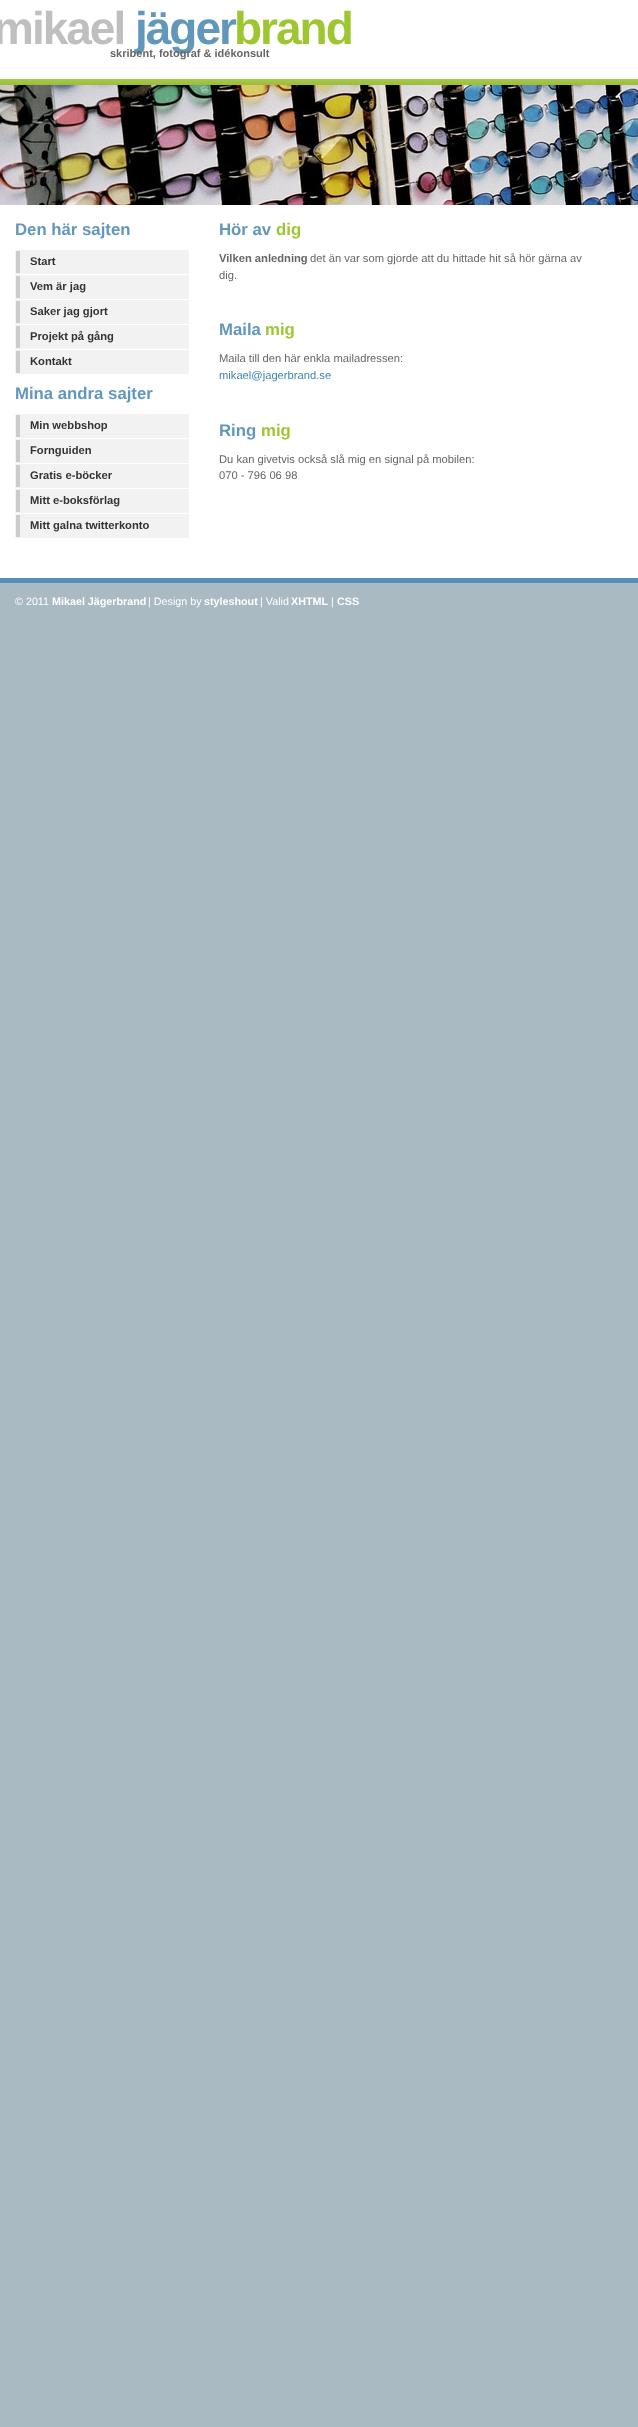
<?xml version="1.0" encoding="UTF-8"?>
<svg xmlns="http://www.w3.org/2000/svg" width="638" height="2427">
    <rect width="100%" height="100%" fill="#A9BAC3"/>
    <rect x="0" y="205" width="638" height="373" fill="#FFFFFF"/>
    <image x="0" y="0" width="638" height="85" href="img_01.png"/>
    <text x="-7" y="44" font-family="Liberation Sans" font-size="46" font-weight="700" letter-spacing="-2" fill="#BFBFBF">mikael</text>
    <text x="135" y="44" font-family="Liberation Sans" font-size="46" font-weight="700" letter-spacing="-2" fill="#6297BC">jäger</text>
    <text x="234" y="44" font-family="Liberation Sans" font-size="46" font-weight="700" letter-spacing="-2" fill="#9EC630">brand</text>
    <text x="110" y="57" font-family="Liberation Sans" font-size="11" font-weight="700" fill="#666666">skribent, fotograf &amp; idékonsult</text>
    <image x="0" y="85" width="638" height="120" href="img_02.png"/>
    <text x="15" y="235" font-family="Liberation Sans" font-size="16.75" font-weight="700" fill="#6297BC">Den här sajten</text>
    <rect x="15.5" y="250.5" width="173" height="23" fill="none" stroke="#F2F2F2"/>
    <rect x="20" y="251" width="168" height="22" fill="#F2F2F2"/>
    <rect x="16" y="251" width="4" height="22" fill="#CCCCCC"/>
    <text x="30" y="265" font-family="Liberation Sans" font-size="11.2" font-weight="700" fill="#333333">Start</text>
    <rect x="15.5" y="275.5" width="173" height="23" fill="none" stroke="#F2F2F2"/>
    <rect x="20" y="276" width="168" height="22" fill="#F2F2F2"/>
    <rect x="16" y="276" width="4" height="22" fill="#CCCCCC"/>
    <text x="30" y="290" font-family="Liberation Sans" font-size="11.2" font-weight="700" fill="#333333">Vem är jag</text>
    <rect x="15.5" y="300.5" width="173" height="23" fill="none" stroke="#F2F2F2"/>
    <rect x="20" y="301" width="168" height="22" fill="#F2F2F2"/>
    <rect x="16" y="301" width="4" height="22" fill="#CCCCCC"/>
    <text x="30" y="315" font-family="Liberation Sans" font-size="11.2" font-weight="700" fill="#333333">Saker jag gjort</text>
    <rect x="15.5" y="325.5" width="173" height="23" fill="none" stroke="#F2F2F2"/>
    <rect x="20" y="326" width="168" height="22" fill="#F2F2F2"/>
    <rect x="16" y="326" width="4" height="22" fill="#CCCCCC"/>
    <text x="30" y="340" font-family="Liberation Sans" font-size="11.2" font-weight="700" fill="#333333">Projekt på gång</text>
    <rect x="15.5" y="350.5" width="173" height="23" fill="none" stroke="#F2F2F2"/>
    <rect x="20" y="351" width="168" height="22" fill="#F2F2F2"/>
    <rect x="16" y="351" width="4" height="22" fill="#CCCCCC"/>
    <text x="30" y="365" font-family="Liberation Sans" font-size="11.2" font-weight="700" fill="#333333">Kontakt</text>
    <text x="15" y="399" font-family="Liberation Sans" font-size="16.75" font-weight="700" fill="#6297BC">Mina andra sajter</text>
    <rect x="15.5" y="414.5" width="173" height="23" fill="none" stroke="#F2F2F2"/>
    <rect x="20" y="415" width="168" height="22" fill="#F2F2F2"/>
    <rect x="16" y="415" width="4" height="22" fill="#CCCCCC"/>
    <text x="30" y="429" font-family="Liberation Sans" font-size="11.2" font-weight="700" fill="#333333">Min webbshop</text>
    <rect x="15.5" y="439.5" width="173" height="23" fill="none" stroke="#F2F2F2"/>
    <rect x="20" y="440" width="168" height="22" fill="#F2F2F2"/>
    <rect x="16" y="440" width="4" height="22" fill="#CCCCCC"/>
    <text x="30" y="454" font-family="Liberation Sans" font-size="11.2" font-weight="700" fill="#333333">Fornguiden</text>
    <rect x="15.5" y="464.5" width="173" height="23" fill="none" stroke="#F2F2F2"/>
    <rect x="20" y="465" width="168" height="22" fill="#F2F2F2"/>
    <rect x="16" y="465" width="4" height="22" fill="#CCCCCC"/>
    <text x="30" y="479" font-family="Liberation Sans" font-size="11.2" font-weight="700" fill="#333333">Gratis e-böcker</text>
    <rect x="15.5" y="489.5" width="173" height="23" fill="none" stroke="#F2F2F2"/>
    <rect x="20" y="490" width="168" height="22" fill="#F2F2F2"/>
    <rect x="16" y="490" width="4" height="22" fill="#CCCCCC"/>
    <text x="30" y="504" font-family="Liberation Sans" font-size="11.2" font-weight="700" fill="#333333">Mitt e-boksförlag</text>
    <rect x="15.5" y="514.5" width="173" height="23" fill="none" stroke="#F2F2F2"/>
    <rect x="20" y="515" width="168" height="22" fill="#F2F2F2"/>
    <rect x="16" y="515" width="4" height="22" fill="#CCCCCC"/>
    <text x="30" y="529" font-family="Liberation Sans" font-size="11.2" font-weight="700" fill="#333333">Mitt galna twitterkonto</text>
    <text x="219" y="235" font-family="Liberation Sans" font-size="16.75" font-weight="700" fill="#6297BC">Hör av</text>
    <text x="276" y="235" font-family="Liberation Sans" font-size="16.75" font-weight="700" fill="#9EC630">dig</text>
    <text x="219" y="262" font-family="Liberation Sans" font-size="11.2" font-weight="700" fill="#666666">Vilken anledning</text>
    <text x="310" y="262" font-family="Liberation Sans" font-size="11.2" fill="#666666">det än var som gjorde att du hittade hit så hör gärna av</text>
    <text x="219" y="279" font-family="Liberation Sans" font-size="11.2" fill="#666666">dig.</text>
    <text x="219" y="335" font-family="Liberation Sans" font-size="16.75" font-weight="700" fill="#6297BC">Maila</text>
    <text x="265" y="335" font-family="Liberation Sans" font-size="16.75" font-weight="700" fill="#9EC630">mig</text>
    <text x="219" y="362" font-family="Liberation Sans" font-size="11.2" fill="#666666">Maila till den här enkla mailadressen:</text>
    <text x="219" y="379" font-family="Liberation Sans" font-size="11.2" fill="#4284B0">mikael@jagerbrand.se</text>
    <text x="219" y="436" font-family="Liberation Sans" font-size="16.75" font-weight="700" fill="#6297BC">Ring</text>
    <text x="261" y="436" font-family="Liberation Sans" font-size="16.75" font-weight="700" fill="#9EC630">mig</text>
    <text font-family="Liberation Sans" font-size="11.2" fill="#666666">
        <tspan x="219" y="463">Du kan givetvis också slå mig en signal på mobilen:</tspan>
        <tspan x="219" y="479">070 - 796 06 98</tspan>
    </text>
    <rect x="0" y="578" width="638" height="5" fill="#568EB6"/>
    <text x="15" y="605" font-family="Liberation Sans" font-size="10.75" fill="#FFFFFF">© 2011</text>
    <text x="52" y="605" font-family="Liberation Sans" font-size="10.75" font-weight="700" fill="#FFFFFF">Mikael Jägerbrand</text>
    <text x="148" y="605" font-family="Liberation Sans" font-size="10.75" fill="#FFFFFF">| Design by</text>
    <text x="204" y="605" font-family="Liberation Sans" font-size="10.75" font-weight="700" fill="#FFFFFF">styleshout</text>
    <text x="260" y="605" font-family="Liberation Sans" font-size="10.75" fill="#FFFFFF">| Valid</text>
    <text x="291" y="605" font-family="Liberation Sans" font-size="10.75" font-weight="700" fill="#FFFFFF">XHTML</text>
    <text x="331" y="605" font-family="Liberation Sans" font-size="10.75" fill="#FFFFFF">|</text>
    <text x="337" y="605" font-family="Liberation Sans" font-size="10.75" font-weight="700" fill="#FFFFFF">CSS</text>
</svg>
